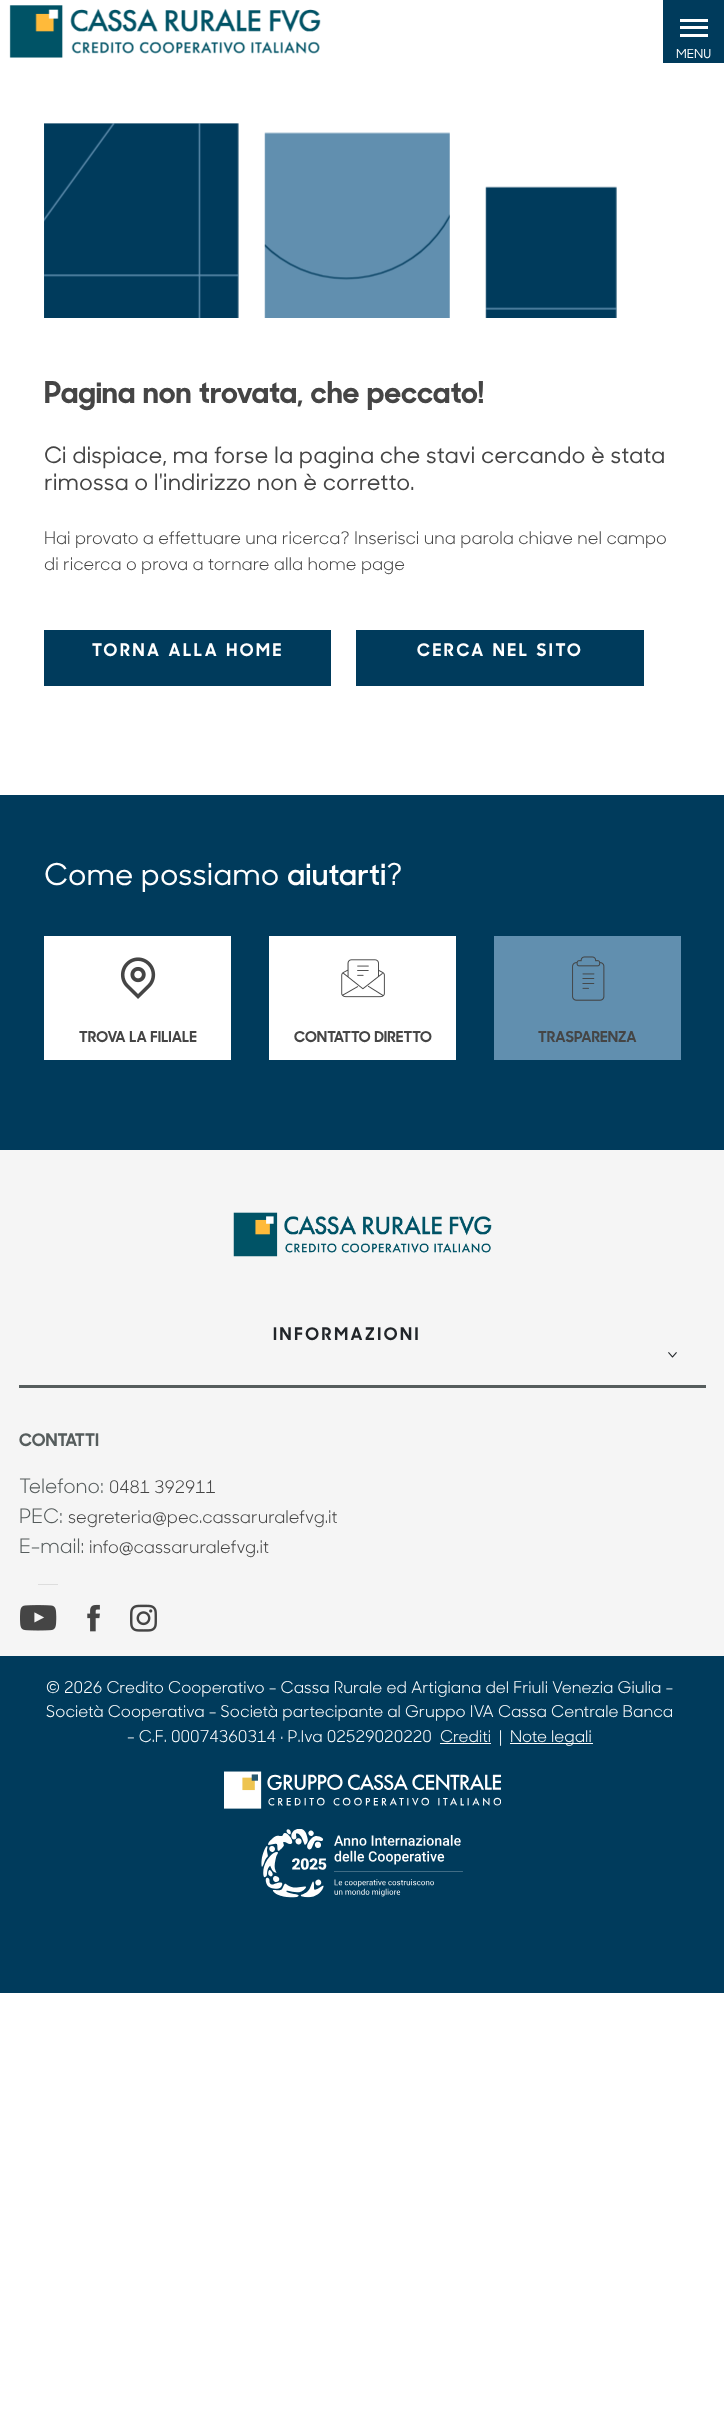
<?xml version="1.0" encoding="UTF-8"?>
<svg xmlns="http://www.w3.org/2000/svg" width="724" height="2422">
    <rect width="100%" height="100%" fill="#FFFFFF"/>
    <image x="9" y="5" width="312" height="53" href="img_01.png"/>
    <rect x="663" y="0" width="61" height="63" fill="#003B5C"/>
    <rect x="680" y="19" width="28" height="3" fill="#FFFFFF"/>
    <rect x="680" y="26" width="28" height="3" fill="#FFFFFF"/>
    <rect x="680" y="34" width="28" height="3" fill="#FFFFFF"/>
    <text x="676" y="58" font-family="'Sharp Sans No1'" font-size="12.5" font-weight="500" fill="#FFFFFF">MENU</text>
    <image x="44" y="123" width="573" height="195" href="img_02.png"/>
    <text x="44" y="403" font-family="'Sharp Sans No1'" font-size="30" font-weight="700" fill="#454545">Pagina non trovata, che peccato!</text>
    <text font-family="'Sharp Sans No1'" font-size="22.6" font-weight="500" fill="#454545">
        <tspan x="44" y="463">Ci dispiace, ma forse la pagina che stavi cercando è stata</tspan>
        <tspan x="44" y="490">rimossa o l'indirizzo non è corretto.</tspan>
    </text>
    <text font-family="'Sharp Sans No1'" font-size="17.4" fill="#454545">
        <tspan x="44" y="544">Hai provato a effettuare una ricerca? Inserisci una parola chiave nel campo</tspan>
        <tspan x="44" y="570">di ricerca o prova a tornare alla home page</tspan>
    </text>
    <rect x="44" y="630" width="287" height="56" fill="#003B5C"/>
    <text x="92" y="656" font-family="'Sharp Sans No1'" font-size="17.4" font-weight="700" letter-spacing="2.6" fill="#FFFFFF">TORNA ALLA HOME</text>
    <rect x="356" y="630" width="288" height="56" fill="#003B5C"/>
    <text x="417" y="656" font-family="'Sharp Sans No1'" font-size="17.4" font-weight="700" letter-spacing="2.6" fill="#FFFFFF">CERCA NEL SITO</text>
    <rect x="0" y="795" width="724" height="355" fill="#003B5C"/>
    <text x="44" y="885" font-family="'Sharp Sans No1'" font-size="30" font-weight="500" fill="#FFFFFF">Come possiamo</text>
    <text x="287" y="885" font-family="'Sharp Sans No1'" font-size="30" font-weight="600" fill="#FFFFFF">aiutarti</text>
    <text x="386" y="885" font-family="'Sharp Sans No1'" font-size="30" font-weight="500" fill="#FFFFFF">?</text>
    <rect x="44" y="936" width="187" height="124" fill="#FFFFFF"/>
    <image x="120" y="957" width="36" height="42" href="img_03.png"/>
    <text x="79" y="1042" font-family="'Sharp Sans No1'" font-size="15" font-weight="700" fill="#454545">TROVA LA FILIALE</text>
    <rect x="269" y="936" width="187" height="124" fill="#FFFFFF"/>
    <image x="341" y="959" width="44" height="39" href="img_04.png"/>
    <text x="294" y="1042" font-family="'Sharp Sans No1'" font-size="15" font-weight="700" fill="#454545">CONTATTO DIRETTO</text>
    <rect x="494" y="936" width="187" height="124" fill="#618FAF"/>
    <image x="572" y="956" width="33" height="45" href="img_05.png"/>
    <text x="538" y="1042" font-family="'Sharp Sans No1'" font-size="15" font-weight="700" fill="#454545">TRASPARENZA</text>
    <rect x="0" y="1150" width="724" height="506" fill="#F5F5F5"/>
    <image x="233" y="1212" width="259" height="45" href="img_06.png"/>
    <text x="273" y="1340" font-family="'Sharp Sans No1'" font-size="17.4" font-weight="700" letter-spacing="2.6" fill="#212529">INFORMAZIONI</text>
    <image x="668" y="1352" width="9" height="6" href="img_07.png"/>
    <rect x="19" y="1385" width="687" height="3" fill="#565D5D"/>
    <text x="19" y="1446" font-family="'Sharp Sans No1'" font-size="17.4" font-weight="700" fill="#565D5D">CONTATTI</text>
    <text x="19" y="1493" font-family="'Sharp Sans No1'" font-size="20" fill="#565D5D">Telefono:</text>
    <text x="109" y="1493" font-family="'Sharp Sans No1'" font-size="17.4" fill="#454545">0481 392911</text>
    <text x="19" y="1523" font-family="'Sharp Sans No1'" font-size="20" fill="#565D5D">PEC:</text>
    <text x="68" y="1523" font-family="'Sharp Sans No1'" font-size="17.4" fill="#454545">segreteria@pec.cassaruralefvg.it</text>
    <text x="19" y="1553" font-family="'Sharp Sans No1'" font-size="20" fill="#565D5D">E-mail:</text>
    <text x="89" y="1553" font-family="'Sharp Sans No1'" font-size="17.4" fill="#454545">info@cassaruralefvg.it</text>
    <rect x="38" y="1584" width="20" height="1" fill="#DDDDDD"/>
    <image x="20" y="1605" width="37" height="26" href="img_08.png"/>
    <image x="87" y="1604" width="13" height="28" href="img_09.png"/>
    <image x="130" y="1604" width="27" height="28" href="img_10.png"/>
    <rect x="0" y="1656" width="724" height="337" fill="#003B5C"/>
    <text font-family="'Sharp Sans No1'" font-size="16.25" fill="#FFFFFF">
        <tspan x="46" y="1693">© 2026 Credito Cooperativo - Cassa Rurale ed Artigiana del Friuli Venezia Giulia -</tspan>
        <tspan x="46" y="1717">Società Cooperativa - Società partecipante al Gruppo IVA Cassa Centrale Banca</tspan>
    </text>
    <text x="127" y="1742" font-family="'Sharp Sans No1'" font-size="16.25" fill="#FFFFFF">- C.F. 00074360314 · P.Iva 02529020220</text>
    <text x="440" y="1742" font-family="'Sharp Sans No1'" font-size="16.25" fill="#FFFFFF">Crediti</text>
    <rect x="440" y="1743" width="51" height="1" fill="#FFFFFF"/>
    <text x="499" y="1742" font-family="'Sharp Sans No1'" font-size="16.25" fill="#FFFFFF">|</text>
    <rect x="510" y="1743" width="83" height="1" fill="#FFFFFF"/>
    <text x="510" y="1742" font-family="'Sharp Sans No1'" font-size="16.25" fill="#FFFFFF">Note legali</text>
    <image x="224" y="1771" width="277" height="38" href="img_11.png"/>
    <image x="261" y="1829" width="202" height="69" href="img_12.png"/>
</svg>
